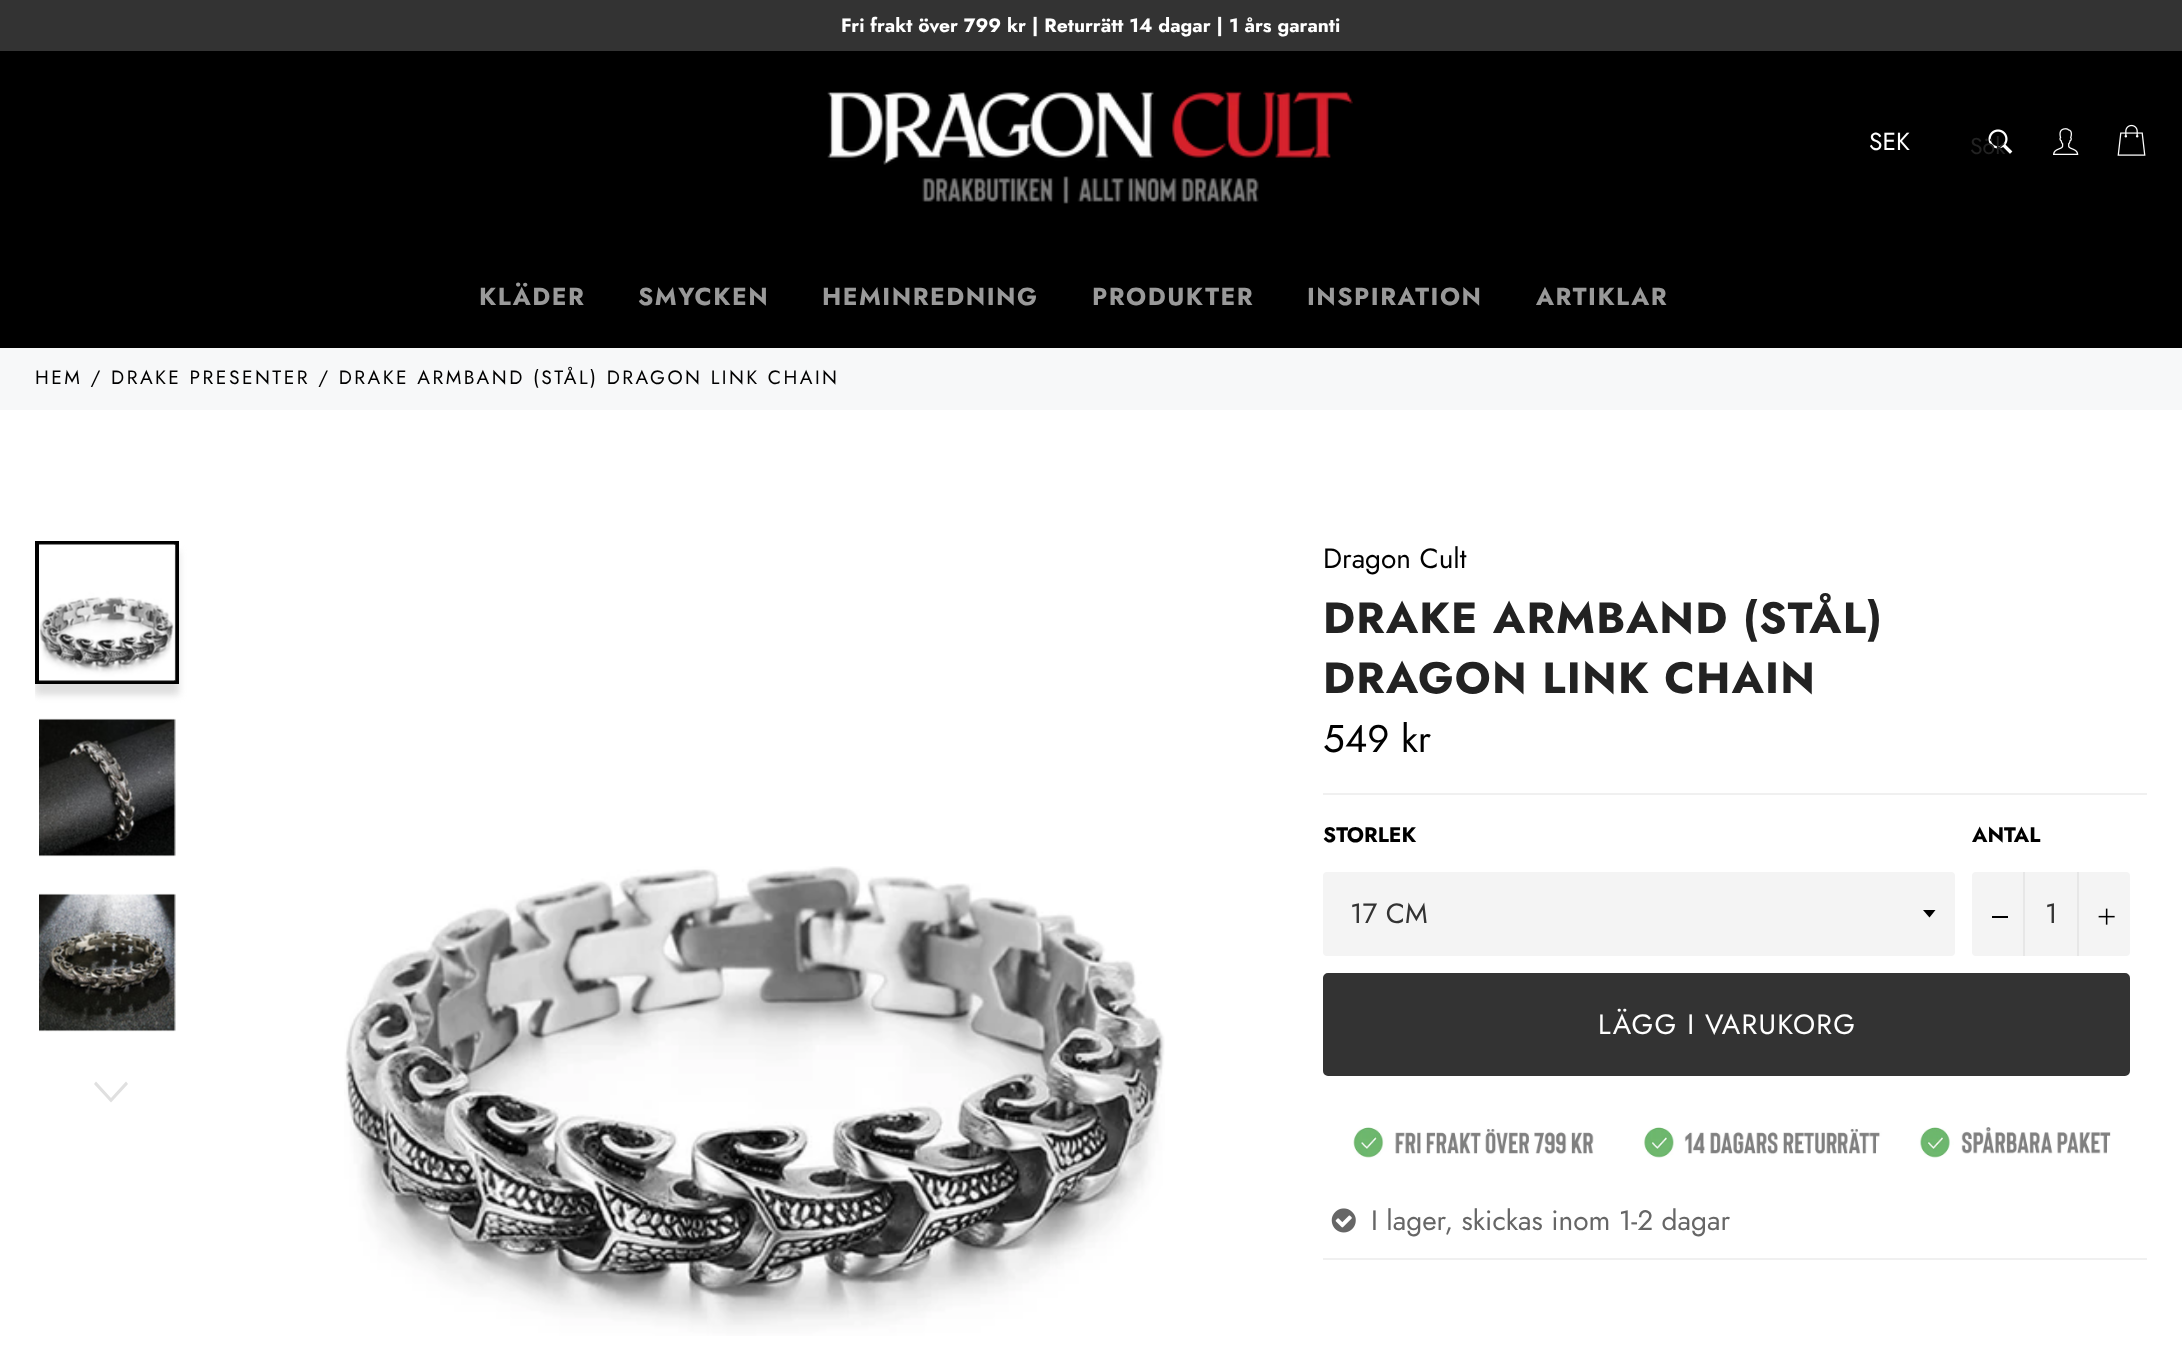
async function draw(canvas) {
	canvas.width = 2182;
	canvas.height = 1359;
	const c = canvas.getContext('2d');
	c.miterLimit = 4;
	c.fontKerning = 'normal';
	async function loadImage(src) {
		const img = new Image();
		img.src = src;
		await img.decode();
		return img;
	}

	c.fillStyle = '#fff';
	c.fillRect(0, 0, 2182, 1359);
	c.fillStyle = '#333';
	c.fillRect(0, 0, 2182, 51);
	c.font = 'bold 19.25px Jost';
	c.fillStyle = '#fff';
	c.fillText('Fri frakt över 799 kr | Returrätt 14 dagar | 1 års garanti', 841, 32);
	c.fillStyle = '#000';
	c.fillRect(0, 51, 2182, 297);
	c.drawImage(await loadImage('img1.png'), 827, 91, 526, 113);
	c.font = '24.5px Jost';
	c.fillStyle = '#fff';
	c.fillText('SEK', 1869, 150);
	c.drawImage(await loadImage('img2.png'), 1988, 129, 25, 25);
	c.font = '23px Jost';
	c.fillStyle = '#222';
	c.fillText('Sök', 1970, 154);
	c.drawImage(await loadImage('img3.png'), 2053, 128, 26, 27);
	c.drawImage(await loadImage('img4.png'), 2117, 124, 29, 32);
	c.letterSpacing = '1.5px';
	c.font = 'bold 24.5px Jost';
	c.fillStyle = '#999';
	for (const [text, x, y] of [
		['KLÄDER', 479, 305],
		['SMYCKEN', 638, 305],
		['HEMINREDNING', 822, 305],
		['PRODUKTER', 1092, 305],
		['INSPIRATION', 1307, 305],
		['ARTIKLAR', 1536, 305],
	]) {
		c.fillText(text, x, y);
	}
	c.fillStyle = '#f7f8f9';
	c.fillRect(0, 348, 2182, 62);
	c.letterSpacing = '2.45px';
	c.font = '19.25px Jost';
	c.fillStyle = '#000';
	c.fillText('HEM / DRAKE PRESENTER / DRAKE ARMBAND (STÅL) DRAGON LINK CHAIN', 35, 384);
	c.save();
	c.beginPath();
	c.rect(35, 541, 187, 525);
	c.clip();
	c.fillStyle = '#c7c7c799';
	c.filter = 'blur(3.5px)';
	c.beginPath();
	c.rect(35, 551, 144, 144);
	c.fill();
	c.filter = 'none';
	c.restore();
	c.strokeStyle = '#000';
	c.lineWidth = 4;
	c.strokeRect(37, 543, 140, 139);
	c.drawImage(await loadImage('img5.png'), 39, 543, 137, 139);
	c.drawImage(await loadImage('img6.png'), 39, 718, 137, 139);
	c.drawImage(await loadImage('img7.png'), 39, 893, 137, 139);
	c.fillStyle = '#e0e0e0';
	c.beginPath();
	c.moveTo(126, 1081.5);
	c.lineTo(128, 1084);
	c.lineTo(111, 1102.5);
	c.lineTo(94, 1084);
	c.lineTo(96, 1081.5);
	c.lineTo(111, 1098);
	c.closePath();
	c.fill();
	c.drawImage(await loadImage('img8.png'), 344, 866, 821, 470);
	c.letterSpacing = '0px';
	c.font = '28px Jost';
	c.fillStyle = '#000';
	c.fillText('Dragon Cult', 1323, 568);
	c.letterSpacing = '1.25px';
	c.font = 'bold 43.75px Jost';
	c.fillStyle = '#222';
	c.fillText('DRAKE ARMBAND (STÅL)', 1323, 633);
	c.fillText('DRAGON LINK CHAIN', 1323, 693);
	c.letterSpacing = '0px';
	c.font = '38.5px Jost';
	c.fillStyle = '#000';
	c.fillText('549 kr', 1323, 752);
	c.fillStyle = '#f0f0f0';
	c.fillRect(1323, 793, 824, 2);
	c.font = 'bold 21px Jost';
	c.fillStyle = '#000';
	c.fillText('STORLEK', 1323, 842);
	c.fillStyle = '#f4f4f4';
	c.beginPath();
	c.roundRect(1323, 872, 632, 84, 4);
	c.fill();
	c.fillStyle = '#000';
	c.beginPath();
	c.moveTo(1923, 910);
	c.lineTo(1929.5, 917.5);
	c.lineTo(1935.5, 910);
	c.closePath();
	c.fill();
	c.font = '28px Jost';
	c.fillStyle = '#333';
	c.fillText('17 CM', 1350, 923);
	c.font = 'bold 21px Jost';
	c.fillStyle = '#000';
	c.fillText('ANTAL', 1972, 842);
	c.fillStyle = '#f4f4f4';
	c.beginPath();
	c.roundRect(1972, 872, 158, 84, 4);
	c.fill();
	c.fillStyle = '#e7e7e7';
	c.fillRect(2023, 872, 2, 84);
	c.fillStyle = '#000';
	c.fillRect(1992, 916, 16, 2);
	c.font = '28px Jost';
	c.fillStyle = '#333';
	c.fillText('1', 2045, 923);
	c.fillStyle = '#e7e7e7';
	c.fillRect(2077, 872, 2, 84);
	c.drawImage(await loadImage('img9.png'), 2098, 908, 17, 17);
	c.fillStyle = '#333';
	c.beginPath();
	c.roundRect(1324, 974, 805, 101, 4);
	c.fill();
	c.strokeStyle = '#333';
	c.lineWidth = 2;
	c.stroke();
	c.letterSpacing = '1.25px';
	c.fillStyle = '#fff';
	c.fillText('LÄGG I VARUKORG', 1598, 1034);
	c.drawImage(await loadImage('img10.png'), 1353, 1127, 758, 31);
	c.drawImage(await loadImage('img11.png'), 1331, 1208, 25, 25);
	c.letterSpacing = '0px';
	c.fillStyle = '#666';
	c.fillText('I lager, skickas inom 1-2 dagar', 1371, 1230);
	c.fillStyle = '#f0f0f0';
	c.fillRect(1323, 1258, 824, 2);
}

draw(document.querySelector('canvas'));
